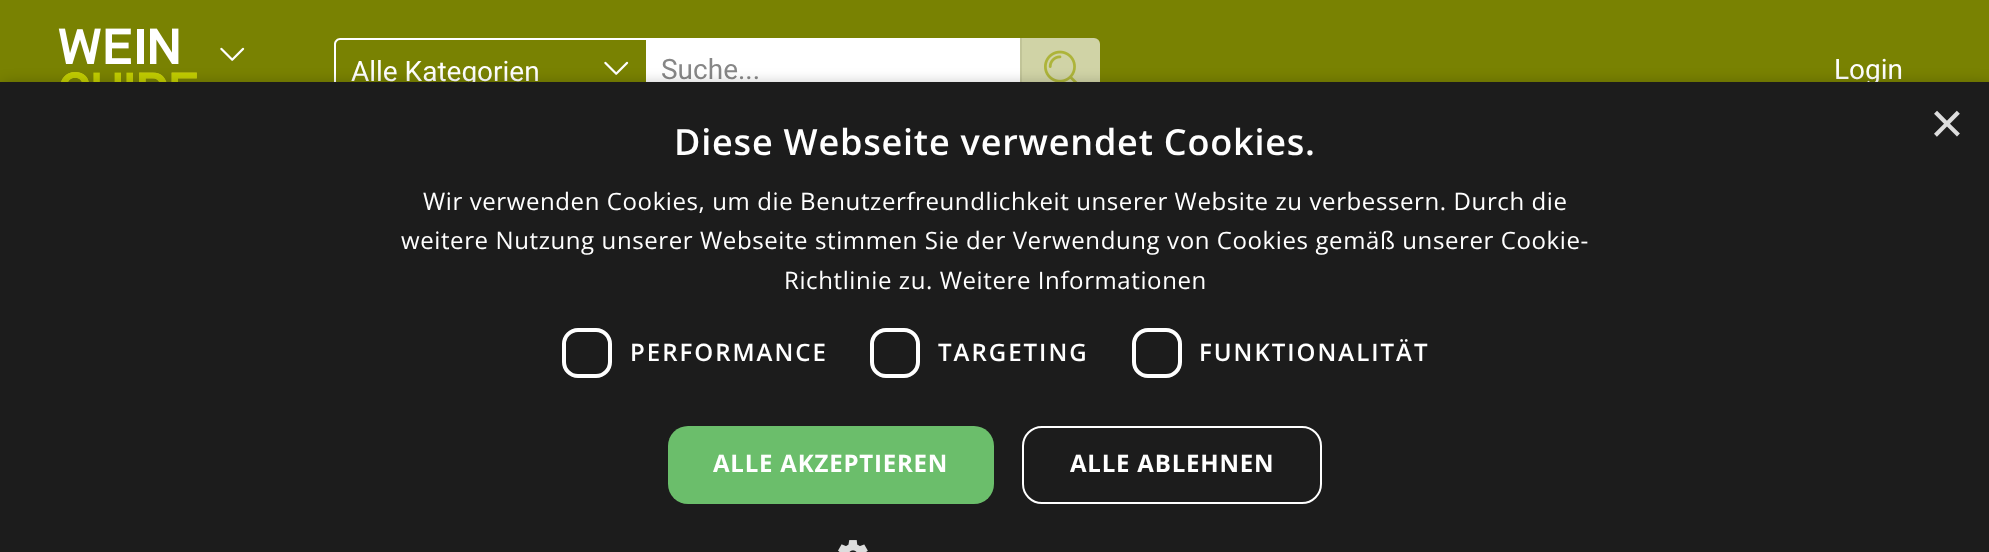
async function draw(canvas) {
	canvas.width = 1989;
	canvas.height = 552;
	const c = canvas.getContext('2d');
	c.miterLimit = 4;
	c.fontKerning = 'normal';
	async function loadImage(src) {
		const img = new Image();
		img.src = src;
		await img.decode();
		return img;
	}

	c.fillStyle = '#798202';
	c.fillRect(0, 0, 1989, 552);
	c.drawImage(await loadImage('img1.png'), 58, 28, 139, 54);
	c.drawImage(await loadImage('img2.png'), 220, 47, 25, 14);
	c.fillStyle = '#fff';
	c.beginPath();
	c.moveTo(340, 38);
	c.lineTo(646, 38);
	c.lineTo(646, 102);
	c.lineTo(340, 102);
	c.bezierCurveTo(337, 102, 334, 99, 334, 96);
	c.lineTo(334, 44);
	c.bezierCurveTo(334, 41, 337, 38, 340, 38);
	c.closePath();
	c.moveTo(340, 40);
	c.lineTo(646, 40);
	c.lineTo(646, 100);
	c.lineTo(340, 100);
	c.bezierCurveTo(338, 100, 336, 98, 336, 96);
	c.lineTo(336, 44);
	c.bezierCurveTo(336, 42, 338, 40, 340, 40);
	c.closePath();
	c.fill('evenodd');
	c.font = '28px Roboto';
	c.fillText('Alle Kategorien', 351, 81);
	c.drawImage(await loadImage('img2.png'), 604, 61, 25, 14);
	c.fillRect(646, 38, 374, 44);
	c.fillStyle = '#878787';
	c.fillText('Suche...', 661, 79);
	c.fillStyle = '#d0d3a6';
	c.beginPath();
	c.roundRect(1020, 38, 80, 64, [0, 6, 6, 0]);
	c.fill();
	c.fillStyle = '#c1c498';
	c.fillRect(1020, 38, 2, 44);
	c.drawImage(await loadImage('img3.png'), 1044, 50, 34, 32);
	c.fillStyle = '#fff';
	c.fillText('Login', 1834, 79);
	c.fillStyle = '#00000059';
	c.filter = 'blur(8px)';
	c.beginPath();
	c.rect(2, 86, 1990, 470);
	c.fill();
	c.filter = 'none';
	c.fillStyle = '#1c1c1c';
	c.fillRect(0, 82, 1989, 470);
	c.font = '58px Liberation Sans';
	c.fillStyle = '#ddd';
	c.fillText('×', 1930, 143);
	c.letterSpacing = '0.8px';
	c.font = '600 36px Open Sans';
	c.fillStyle = '#fff';
	c.fillText('Diese Webseite verwendet Cookies.', 674, 155);
	c.letterSpacing = '0.6px';
	c.font = '24px Open Sans';
	for (const [text, x, y] of [
		['Wir verwenden Cookies, um die Benutzerfreundlichkeit unserer Website zu verbessern. Durch die', 423, 210],
		['weitere Nutzung unserer Webseite stimmen Sie der Verwendung von Cookies gemäß unserer Cookie-', 401, 249],
		['Richtlinie zu. Weitere Informationen', 784, 289],
	]) {
		c.fillText(text, x, y);
	}
	c.beginPath();
	c.roundRect(564, 330, 46, 46, 14);
	c.strokeStyle = '#fff';
	c.lineWidth = 4;
	c.stroke();
	c.letterSpacing = '2px';
	c.font = '600 24px Open Sans';
	c.fillText('PERFORMANCE', 630, 361);
	c.beginPath();
	c.roundRect(872, 330, 46, 46, 14);
	c.stroke();
	c.fillText('TARGETING', 938, 361);
	c.beginPath();
	c.roundRect(1134, 330, 46, 46, 14);
	c.stroke();
	c.fillText('FUNKTIONALITÄT', 1199, 361);
	c.fillStyle = '#6bbe6b';
	c.beginPath();
	c.roundRect(668, 426, 326, 78, 20);
	c.fill();
	c.letterSpacing = '0.8px';
	c.font = 'bold 24px Open Sans';
	c.fillStyle = '#fff';
	c.fillText('ALLE AKZEPTIEREN', 713, 472);
	c.beginPath();
	c.roundRect(1023, 427, 298, 76, 19);
	c.lineWidth = 2;
	c.stroke();
	c.fillText('ALLE ABLEHNEN', 1070, 472);
	c.drawImage(await loadImage('img4.png'), 838, 540, 30, 12);
}

draw(document.querySelector('canvas'));
